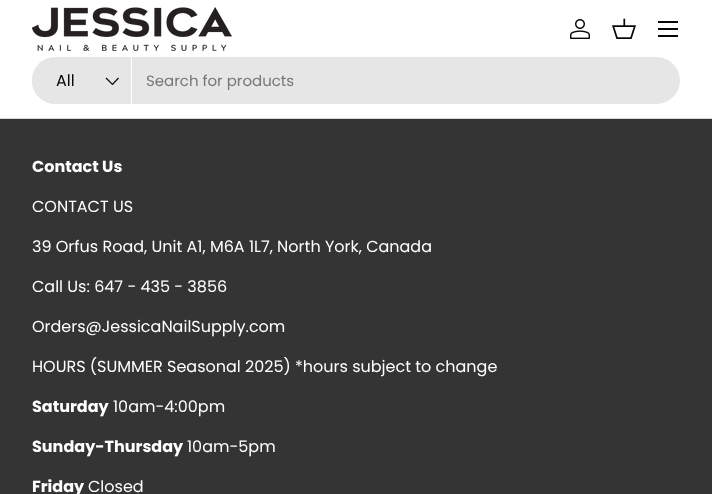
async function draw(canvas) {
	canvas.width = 712;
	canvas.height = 494;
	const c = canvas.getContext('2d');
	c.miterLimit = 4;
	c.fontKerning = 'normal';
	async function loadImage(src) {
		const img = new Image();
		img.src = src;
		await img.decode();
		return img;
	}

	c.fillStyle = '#353434';
	c.fillRect(0, 0, 712, 494);
	c.fillStyle = '#fff';
	c.fillRect(0, 0, 712, 118);
	c.fillStyle = '#dadada';
	c.fillRect(0, 118, 712, 1);
	c.drawImage(await loadImage('img1.png'), 32, 7, 200, 44);
	c.drawImage(await loadImage('img2.png'), 570, 19, 20, 20);
	c.drawImage(await loadImage('img3.png'), 612, 18, 24, 21);
	for (const [x, y, w, h, color] of [
		[658, 21, 20, 2, '#070707'],
		[658, 35, 20, 2, '#070707'],
		[658, 28, 20, 2, '#070707'],
	]) {
		c.fillStyle = color;
		c.fillRect(x, y, w, h);
	}
	c.fillStyle = '#e6e6e6';
	c.beginPath();
	c.roundRect(32, 57, 648, 47, 23.5);
	c.fill();
	c.beginPath();
	c.roundRect(32, 57, 100, 47, [23.5, 0, 0, 23.5]);
	c.fill();
	c.fillStyle = '#fff';
	c.fillRect(131, 57, 1, 47);
	c.font = '16px Poppins';
	c.fillStyle = '#070707';
	c.fillText('All', 56, 86);
	c.beginPath();
	c.moveTo(118.5, 78);
	c.lineTo(112.5, 84.5);
	c.lineTo(106, 78);
	c.strokeStyle = '#070707';
	c.lineWidth = 1.2;
	c.stroke();
	c.font = '15px Poppins';
	c.fillStyle = '#777';
	c.fillText('Search for products', 146, 86);
	c.font = 'bold 16px Poppins';
	c.fillStyle = '#fff';
	c.fillText('Contact Us', 32, 172);
	c.font = '16px Poppins';
	for (const [text, x, y] of [
		['CONTACT US', 32, 212],
		['39 Orfus Road, Unit A1, M6A 1L7, North York, Canada', 32, 252],
		['Call Us: 647 - 435 - 3856', 32, 292],
		['Orders@JessicaNailSupply.com', 32, 332],
		['HOURS (SUMMER Seasonal 2025) *hours subject to change', 32, 372],
	]) {
		c.fillText(text, x, y);
	}
	c.font = 'bold 16px Poppins';
	c.fillText('Saturday', 32, 412);
	c.font = '16px Poppins';
	c.fillText('10am-4:00pm', 113, 412);
	c.font = 'bold 16px Poppins';
	c.fillText('Sunday-Thursday', 32, 452);
	c.font = '16px Poppins';
	c.fillText('10am-5pm', 187, 452);
	c.font = 'bold 16px Poppins';
	c.fillText('Friday', 32, 492);
	c.font = '16px Poppins';
	c.fillText('Closed', 88, 492);
}

draw(document.querySelector('canvas'));
